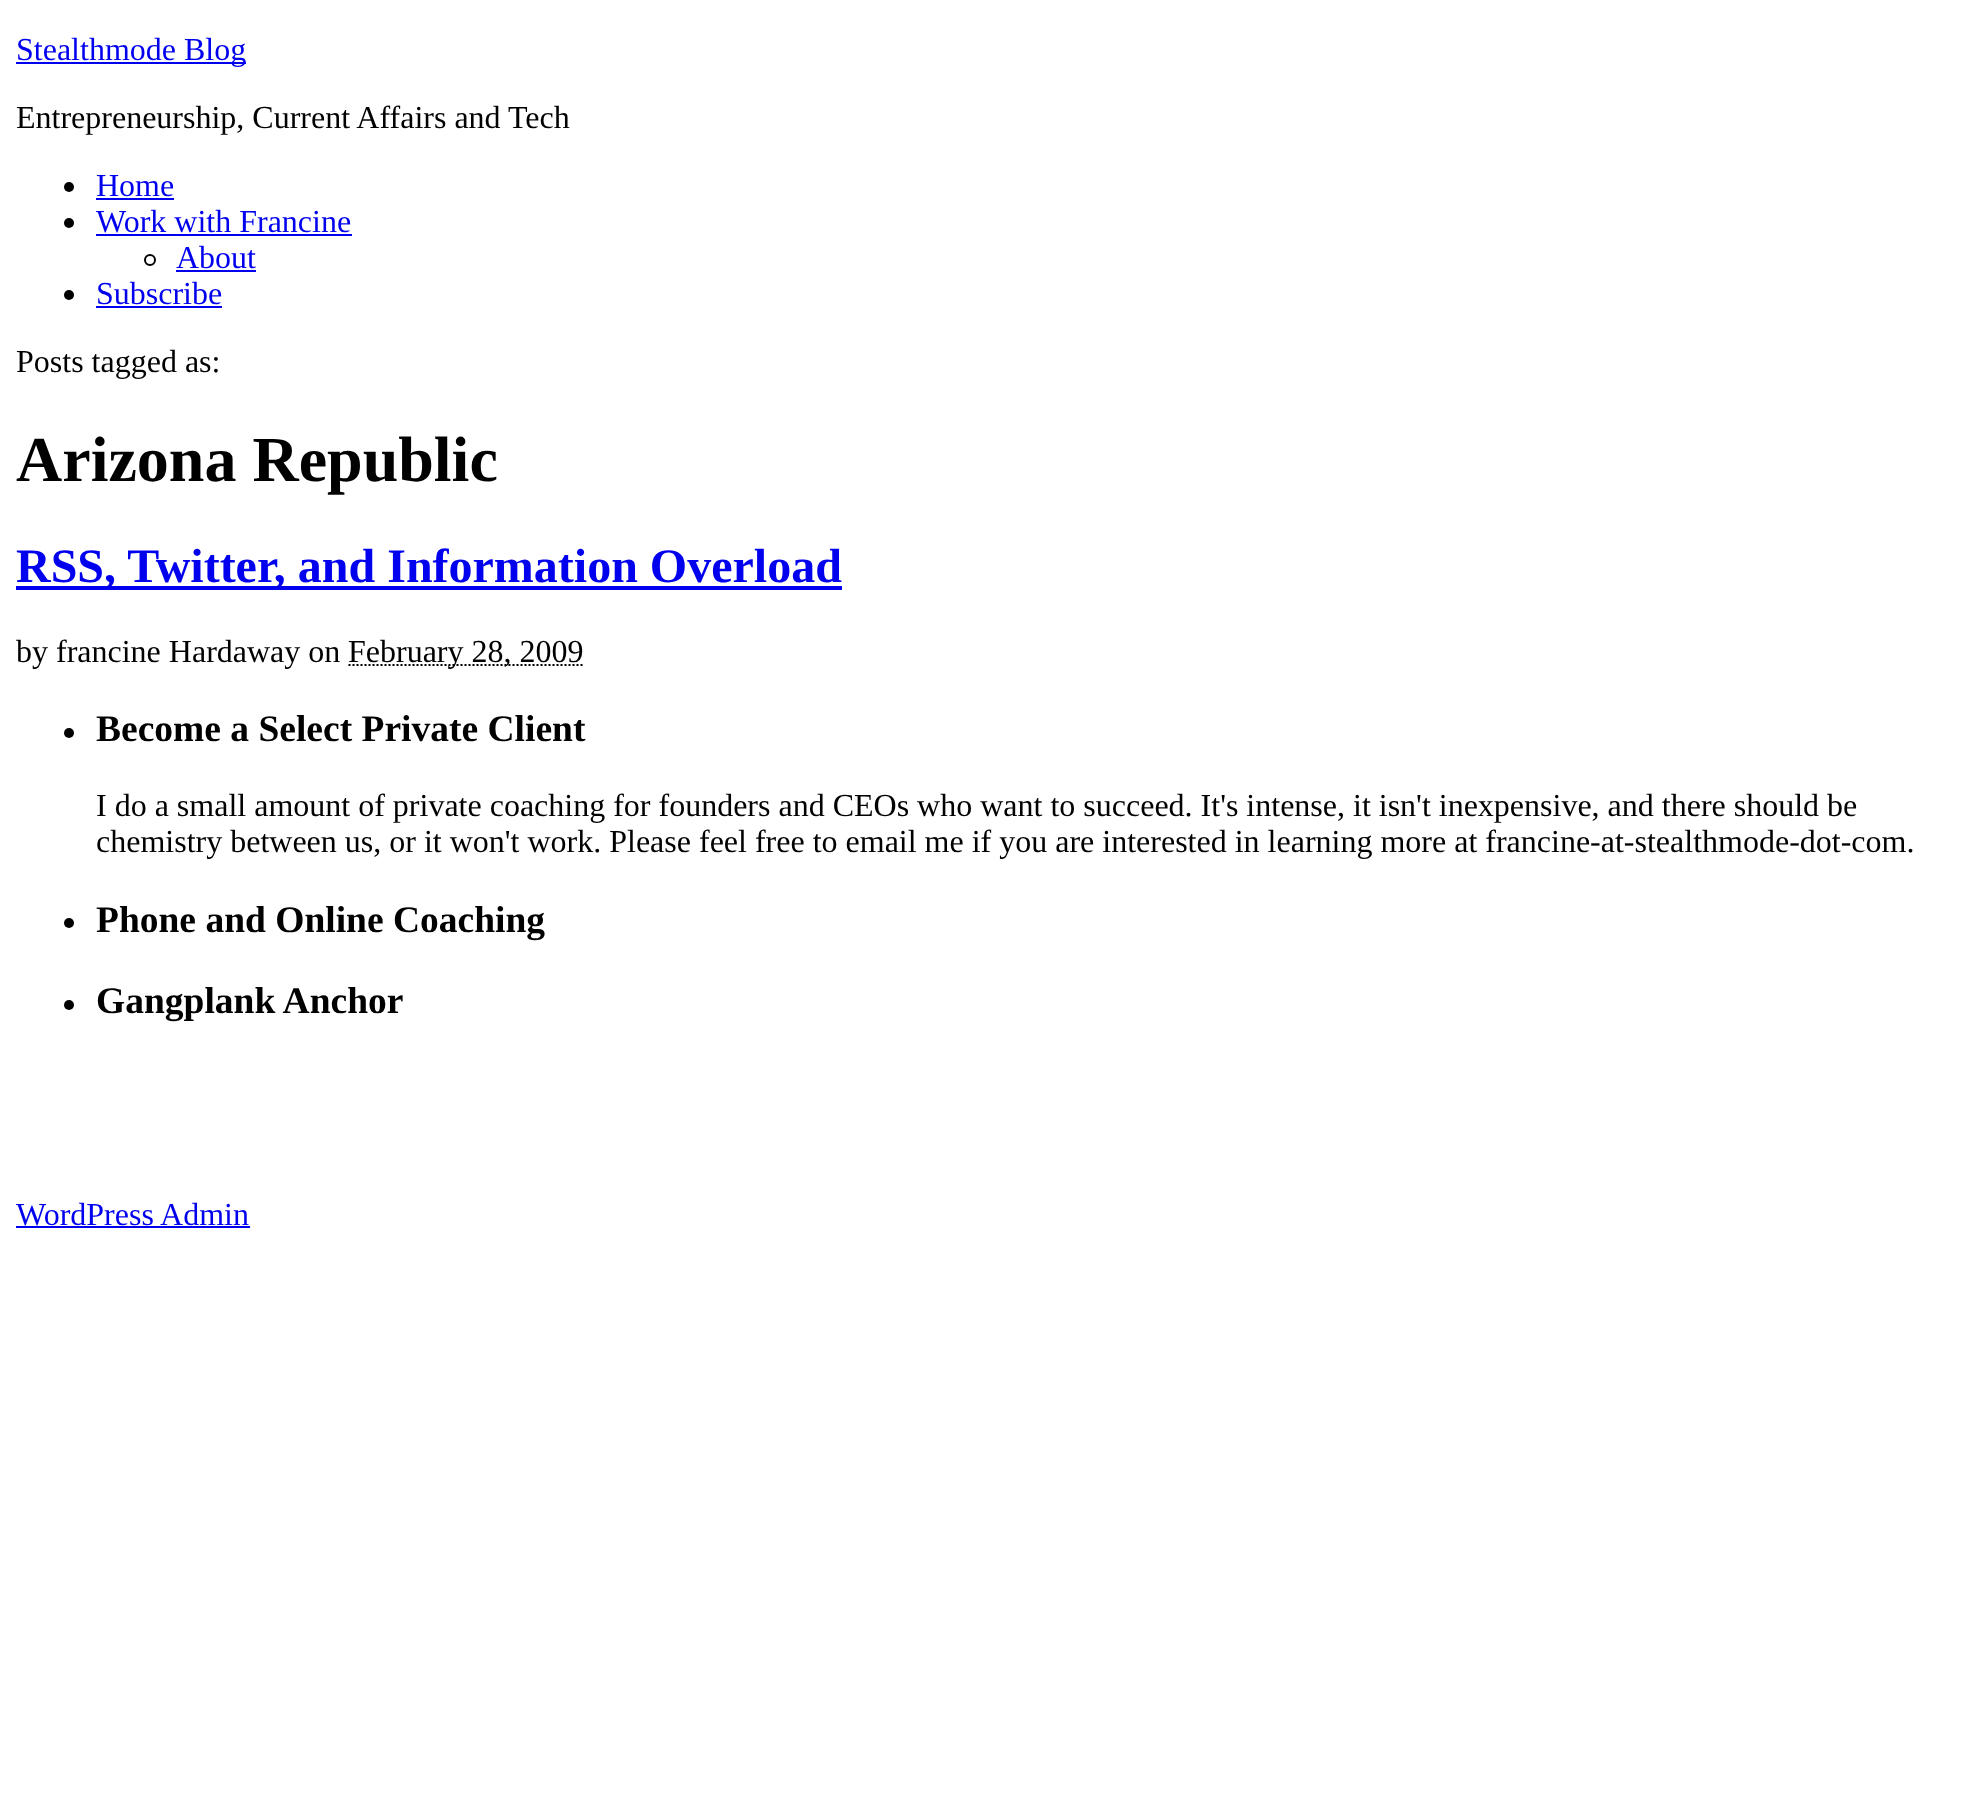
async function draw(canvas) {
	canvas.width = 1981;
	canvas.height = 1812;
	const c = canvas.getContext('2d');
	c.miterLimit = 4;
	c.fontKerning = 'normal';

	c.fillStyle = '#fff';
	c.fillRect(0, 0, 1981, 1812);
	c.fillStyle = '#00e';
	c.fillRect(16, 62, 230, 2);
	c.font = '32px Liberation Serif';
	c.fillText('Stealthmode Blog', 16, 60);
	c.fillStyle = '#000';
	c.fillText('Entrepreneurship, Current Affairs and Tech', 16, 128);
	c.beginPath();
	c.arc(69, 187, 5, 0, 2 * Math.PI);
	c.fill();
	c.fillStyle = '#00e';
	c.fillText('Home', 96, 196);
	c.fillRect(96, 198, 78, 2);
	c.fillStyle = '#000';
	c.beginPath();
	c.arc(69, 223, 5, 0, 2 * Math.PI);
	c.fill();
	c.fillStyle = '#00e';
	c.fillText('Work with Francine', 96, 232);
	c.fillRect(96, 234, 256, 2);
	c.beginPath();
	c.arc(150, 260, 5, 0, 2 * Math.PI);
	c.strokeStyle = '#000';
	c.lineWidth = 2;
	c.stroke();
	c.fillText('About', 176, 268);
	c.fillRect(176, 270, 80, 2);
	c.fillStyle = '#000';
	c.beginPath();
	c.arc(69, 295, 5, 0, 2 * Math.PI);
	c.fill();
	c.fillStyle = '#00e';
	c.fillText('Subscribe', 96, 304);
	c.fillRect(96, 306, 126, 2);
	c.fillStyle = '#000';
	c.fillText('Posts tagged as:', 16, 372);
	c.font = 'bold 64px Liberation Serif';
	c.fillText('Arizona Republic', 16, 481);
	c.fillStyle = '#00e';
	c.fillRect(16, 586, 826, 4);
	c.font = 'bold 48px Liberation Serif';
	c.fillText('RSS, Twitter, and Information Overload', 16, 582);
	c.font = '32px Liberation Serif';
	c.fillStyle = '#000';
	c.fillText('by francine Hardaway on', 16, 662);
	c.beginPath();
	c.moveTo(348.5, 665);
	c.lineTo(584, 665);
	c.setLineDash([2, 2]);
	c.stroke();
	c.fillText('February 28, 2009', 348, 662);
	c.beginPath();
	c.arc(69, 733, 5, 0, 2 * Math.PI);
	c.fill();
	c.font = 'bold 37.5px Liberation Serif';
	c.fillText('Become a Select Private Client', 96, 741);
	c.font = '32px Liberation Serif';
	c.fillText('I do a small amount of private coaching for founders and CEOs who want to succeed. It\'s intense, it isn\'t inexpensive, and there should be', 96, 816);
	c.fillText('chemistry between us, or it won\'t work. Please feel free to email me if you are interested in learning more at francine-at-stealthmode-dot-com.', 96, 852);
	c.beginPath();
	c.arc(69, 923, 5, 0, 2 * Math.PI);
	c.fill();
	c.font = 'bold 37.5px Liberation Serif';
	c.fillText('Phone and Online Coaching', 96, 932);
	c.beginPath();
	c.arc(69, 1005, 5, 0, 2 * Math.PI);
	c.fill();
	c.fillText('Gangplank Anchor', 96, 1013);
	c.font = '32px Liberation Serif';
	c.fillStyle = '#00e';
	c.fillText('WordPress Admin', 16, 1225);
	c.fillRect(16, 1226, 234, 2);
}

draw(document.querySelector('canvas'));
